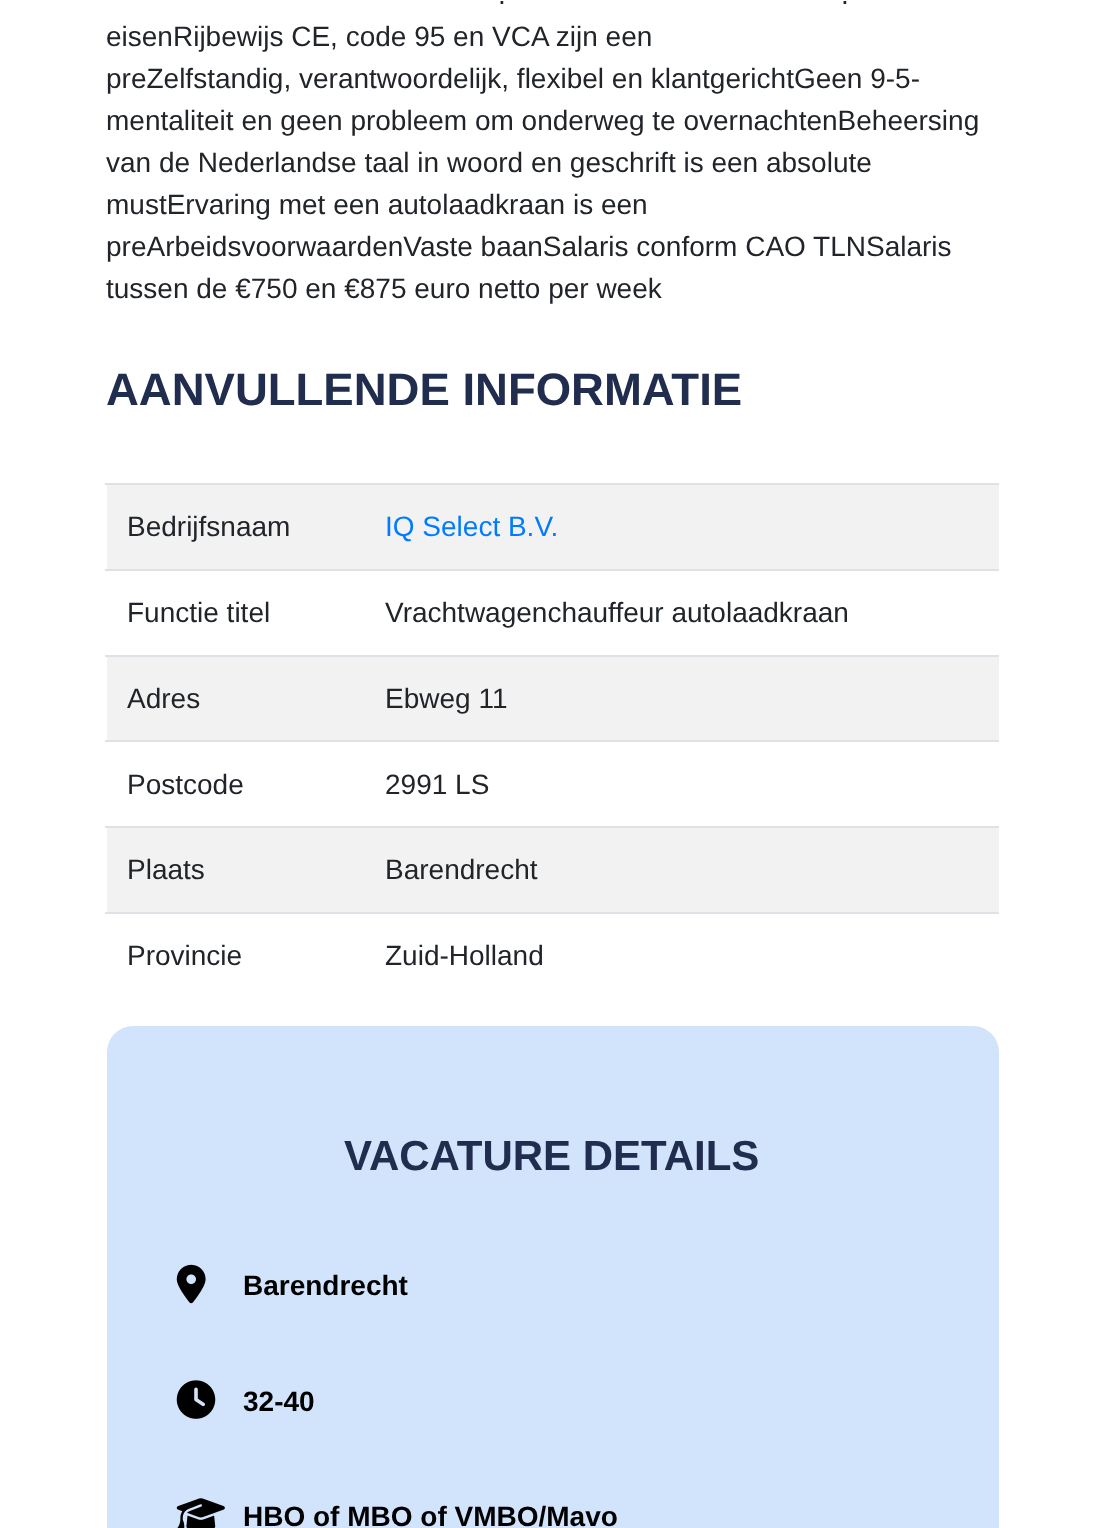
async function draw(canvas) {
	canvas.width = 1104;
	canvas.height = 1528;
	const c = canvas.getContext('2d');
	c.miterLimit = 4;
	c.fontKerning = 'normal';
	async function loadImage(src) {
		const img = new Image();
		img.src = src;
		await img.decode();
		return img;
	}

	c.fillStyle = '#fff';
	c.fillRect(0, 0, 1104, 1528);
	c.font = '28px Liberation Sans';
	c.fillStyle = '#212529';
	for (const [text, x, y] of [
		['.', 498, 4],
		['.', 841, 4],
		['eisenRijbewijs CE, code 95 en VCA zijn een', 106, 46],
		['preZelfstandig, verantwoordelijk, flexibel en klantgerichtGeen 9-5-', 106, 88],
		['mentaliteit en geen probleem om onderweg te overnachtenBeheersing', 106, 130],
		['van de Nederlandse taal in woord en geschrift is een absolute', 106, 172],
		['mustErvaring met een autolaadkraan is een', 106, 214],
		['preArbeidsvoorwaardenVaste baanSalaris conform CAO TLNSalaris', 106, 256],
		['tussen de €750 en €875 euro netto per week', 106, 298],
	]) {
		c.fillText(text, x, y);
	}
	c.font = 'bold 45.5px Liberation Sans';
	c.fillStyle = '#212d4f';
	c.fillText('AANVULLENDE INFORMATIE', 106, 405);
	c.fillStyle = '#f2f2f2';
	c.fillRect(107, 485, 892, 84);
	c.font = '28px Liberation Sans';
	c.fillStyle = '#212529';
	c.fillText('Bedrijfsnaam', 127, 536);
	c.fillStyle = '#dee2e6';
	c.fillRect(105, 483, 894, 2);
	c.fillStyle = '#007bff';
	c.fillText('IQ Select B.V.', 385, 536);
	c.fillStyle = '#212529';
	c.fillText('Functie titel', 127, 622);
	c.fillStyle = '#dee2e6';
	c.fillRect(105, 569, 894, 2);
	c.fillStyle = '#212529';
	c.fillText('Vrachtwagenchauffeur autolaadkraan', 385, 622);
	c.fillStyle = '#f2f2f2';
	c.fillRect(107, 657, 892, 83);
	c.fillStyle = '#212529';
	c.fillText('Adres', 127, 708);
	c.fillStyle = '#dee2e6';
	c.fillRect(105, 655, 894, 2);
	c.fillStyle = '#212529';
	c.fillText('Ebweg 11', 385, 708);
	c.fillText('Postcode', 127, 794);
	c.fillStyle = '#dee2e6';
	c.fillRect(105, 740, 894, 2);
	c.fillStyle = '#212529';
	c.fillText('2991 LS', 385, 794);
	c.fillStyle = '#f2f2f2';
	c.fillRect(107, 828, 892, 84);
	c.fillStyle = '#212529';
	c.fillText('Plaats', 127, 879);
	c.fillStyle = '#dee2e6';
	c.fillRect(105, 826, 894, 2);
	c.fillStyle = '#212529';
	c.fillText('Barendrecht', 385, 879);
	c.fillText('Provincie', 127, 965);
	c.fillStyle = '#dee2e6';
	c.fillRect(105, 912, 894, 2);
	c.fillStyle = '#212529';
	c.fillText('Zuid-Holland', 385, 965);
	c.fillStyle = '#d2e3fc';
	c.beginPath();
	c.roundRect(107, 1026, 892, 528, 26);
	c.fill();
	c.font = 'bold 42px Liberation Sans';
	c.fillStyle = '#212d4f';
	c.fillText('VACATURE DETAILS', 344, 1170);
	c.drawImage(await loadImage('img1.png'), 176, 1264, 30, 40);
	c.font = 'bold 28px Liberation Sans';
	c.fillStyle = '#000';
	c.fillText('Barendrecht', 243, 1295);
	c.drawImage(await loadImage('img2.png'), 176, 1380, 40, 39);
	c.fillText('32-40', 243, 1411);
	c.drawImage(await loadImage('img3.png'), 176, 1498, 49, 30);
	c.fillText('HBO of MBO of VMBO/Mavo', 243, 1526);
}

draw(document.querySelector('canvas'));
